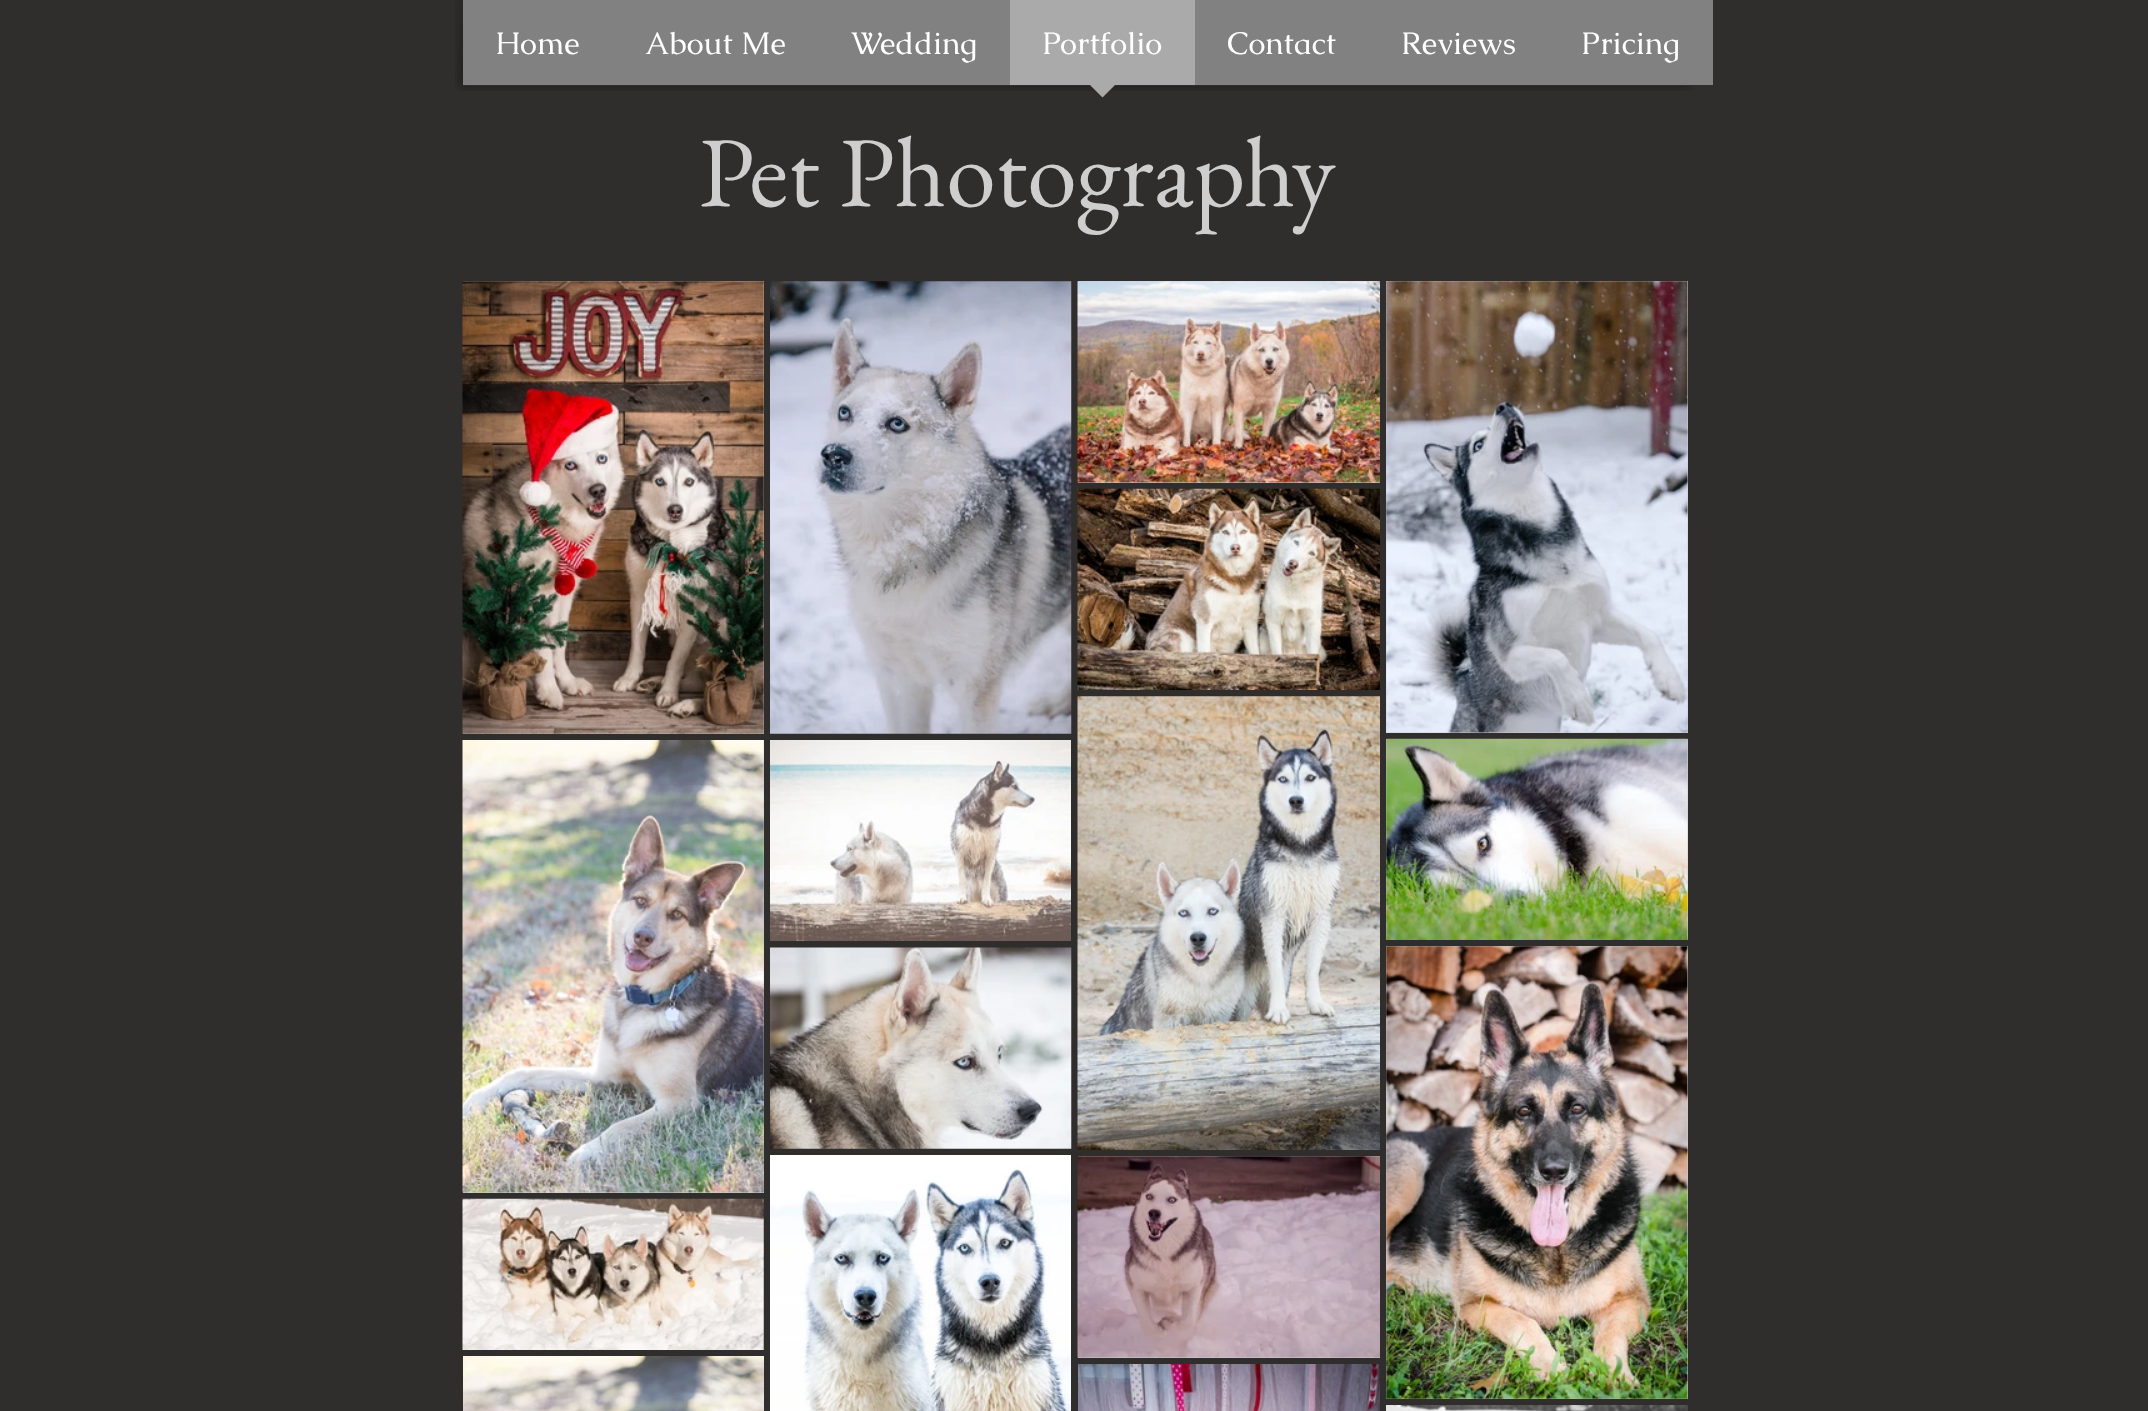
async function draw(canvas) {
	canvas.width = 2148;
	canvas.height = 1411;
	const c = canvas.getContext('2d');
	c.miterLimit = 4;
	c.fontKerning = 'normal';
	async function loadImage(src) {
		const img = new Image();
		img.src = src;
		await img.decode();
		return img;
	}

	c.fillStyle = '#302d2d';
	c.fillRect(0, 0, 2148, 1411);
	c.drawImage(await loadImage('img1.png'), 455, 0, 52, 91);
	c.drawImage(await loadImage('img2.png'), 506, 86, 1138, 5);
	c.drawImage(await loadImage('img3.png'), 1644, 86, 51, 5);
	c.fillStyle = '#818181';
	c.fillRect(463, 0, 1250, 85);
	c.fillStyle = '#302d2d';
	c.fillRect(463, 85, 44, 1);
	c.font = '31.25px Caudex';
	c.fillStyle = '#fff';
	for (const [text, x, y] of [
		['Home', 495, 54],
		['About Me', 645, 54],
		['Wedding', 851, 54],
	]) {
		c.fillText(text, x, y);
	}
	c.fillStyle = '#aaa';
	c.fillRect(1010, 0, 185, 85);
	c.fillStyle = '#fff';
	c.fillText('Portfolio', 1042, 54);
	c.fillStyle = '#302d2d';
	c.beginPath();
	c.moveTo(1089, 85);
	c.lineTo(1116, 85);
	c.lineTo(1102.5, 99);
	c.closePath();
	c.fill();
	c.fillStyle = '#aaa';
	c.beginPath();
	c.moveTo(1090, 85);
	c.lineTo(1115, 85);
	c.lineTo(1102.5, 97.5);
	c.closePath();
	c.fill();
	c.fillStyle = '#fff';
	for (const [text, x, y] of [
		['Contact', 1227, 54],
		['Reviews', 1401, 54],
		['Pricing', 1581, 54],
	]) {
		c.fillText(text, x, y);
	}
	c.font = '100px EB Garamond';
	c.fillStyle = '#cecece';
	c.fillText('Pet Photography', 699, 206);
	c.fillRect(463, 281, 301, 453);
	c.drawImage(await loadImage('img4.png'), 462, 281, 302, 453);
	c.drawImage(await loadImage('img5.png'), 770, 281, 302, 453);
	c.fillRect(1078, 281, 302, 202);
	c.drawImage(await loadImage('img6.png'), 1077, 281, 303, 202);
	c.fillRect(1386, 281, 302, 452);
	c.drawImage(await loadImage('img7.png'), 1386, 281, 302, 452);
	c.drawImage(await loadImage('img8.png'), 1077, 488, 303, 202);
	c.fillRect(463, 740, 301, 453);
	c.drawImage(await loadImage('img9.png'), 462, 740, 302, 453);
	c.drawImage(await loadImage('img10.png'), 770, 740, 301, 201);
	c.drawImage(await loadImage('img11.png'), 1077, 696, 303, 454);
	c.fillRect(1386, 739, 302, 201);
	c.drawImage(await loadImage('img12.png'), 1386, 738, 302, 202);
	c.drawImage(await loadImage('img13.png'), 770, 947, 302, 202);
	c.fillRect(1386, 946, 302, 453);
	c.drawImage(await loadImage('img14.png'), 1386, 946, 302, 453);
	c.drawImage(await loadImage('img15.png'), 462, 1198, 302, 152);
	c.drawImage(await loadImage('img16.png'), 770, 1155, 301, 256);
	c.fillRect(1078, 1156, 302, 202);
	c.drawImage(await loadImage('img17.png'), 1077, 1156, 303, 202);
	c.drawImage(await loadImage('img18.png'), 463, 1356, 301, 55);
	c.drawImage(await loadImage('img19.png'), 1078, 1364, 302, 47);
	c.drawImage(await loadImage('img20.png'), 1386, 1405, 302, 6);
}

draw(document.querySelector('canvas'));
